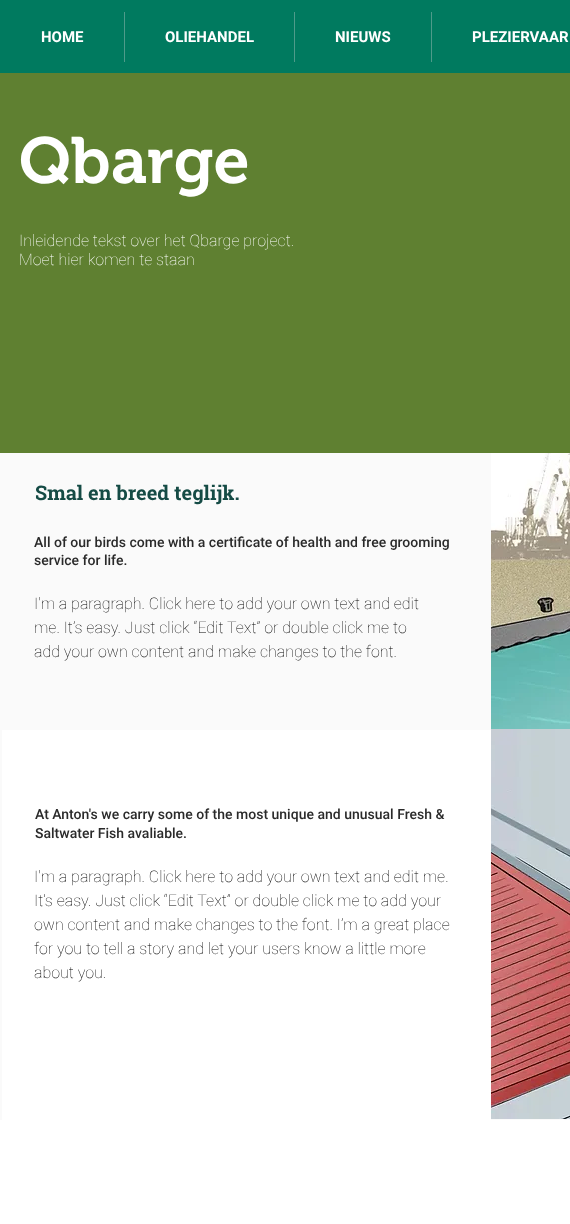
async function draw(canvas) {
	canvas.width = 570;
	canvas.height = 1224;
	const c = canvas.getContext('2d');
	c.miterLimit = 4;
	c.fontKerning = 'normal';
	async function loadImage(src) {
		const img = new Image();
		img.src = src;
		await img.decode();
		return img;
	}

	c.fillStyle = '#fff';
	c.fillRect(0, 0, 570, 1224);
	c.fillStyle = '#007a5f';
	c.fillRect(0, 0, 570, 73);
	c.font = 'bold 15px Roboto';
	c.fillStyle = '#fff';
	c.fillText('HOME', 41, 42);
	c.fillStyle = '#4e9b8a';
	c.fillRect(124, 12, 1, 50);
	c.fillStyle = '#fff';
	c.fillText('OLIEHANDEL', 165, 42);
	c.fillStyle = '#4e9b8a';
	c.fillRect(294, 12, 1, 50);
	c.fillStyle = '#fff';
	c.fillText('NIEUWS', 335, 42);
	c.fillStyle = '#4e9b8a';
	c.fillRect(431, 12, 1, 50);
	c.fillStyle = '#fff';
	c.fillText('PLEZIERVAAR', 472, 42);
	c.fillStyle = '#5f8031';
	c.fillRect(0, 73, 570, 380);
	c.font = '600 65px "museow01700"';
	c.fillStyle = '#fff';
	c.fillText('Qbarge', 19, 183);
	c.font = '100 16px Roboto';
	c.fillText('Inleidende tekst over het Qbarge project.', 19, 246);
	c.fillText('Moet hier komen te staan', 19, 265);
	c.fillStyle = '#fafafa';
	c.fillRect(0, 453, 570, 667);
	c.font = 'bold 20px Roboto Slab';
	c.fillStyle = '#154b45';
	c.fillText('Smal en breed teglijk.', 35, 500);
	c.drawImage(await loadImage('img1.png'), 491, 453, 79, 276);
	c.font = '500 14px Roboto';
	c.fillStyle = '#2a2a2a';
	c.fillText('All of our birds come with a certificate of health and free grooming', 34, 547);
	c.fillText('service for life.', 34, 565);
	c.font = '100 16px Roboto';
	c.fillStyle = '#000';
	for (const [text, x, y] of [
		['I\'m a paragraph. Click here to add your own text and edit', 34, 609],
		['me. It’s easy. Just click “Edit Text” or double click me to', 34, 633],
		['add your own content and make changes to the font.', 34, 657],
	]) {
		c.fillText(text, x, y);
	}
	c.fillStyle = '#fff';
	c.fillRect(2, 730, 489, 390);
	c.font = '500 14px Roboto';
	c.fillStyle = '#2a2a2a';
	c.fillText('At Anton\'s we carry some of the most unique and unusual Fresh &', 35, 819);
	c.fillText('Saltwater Fish avaliable.', 35, 838);
	c.font = '100 16px Roboto';
	c.fillStyle = '#000';
	for (const [text, x, y] of [
		['I\'m a paragraph. Click here to add your own text and edit me.', 34, 882],
		['It’s easy. Just click “Edit Text” or double click me to add your', 34, 906],
		['own content and make changes to the font. I’m a great place', 34, 930],
		['for you to tell a story and let your users know a little more', 34, 954],
		['about you.', 34, 978],
	]) {
		c.fillText(text, x, y);
	}
	c.drawImage(await loadImage('img2.png'), 491, 729, 79, 390);
}

draw(document.querySelector('canvas'));
